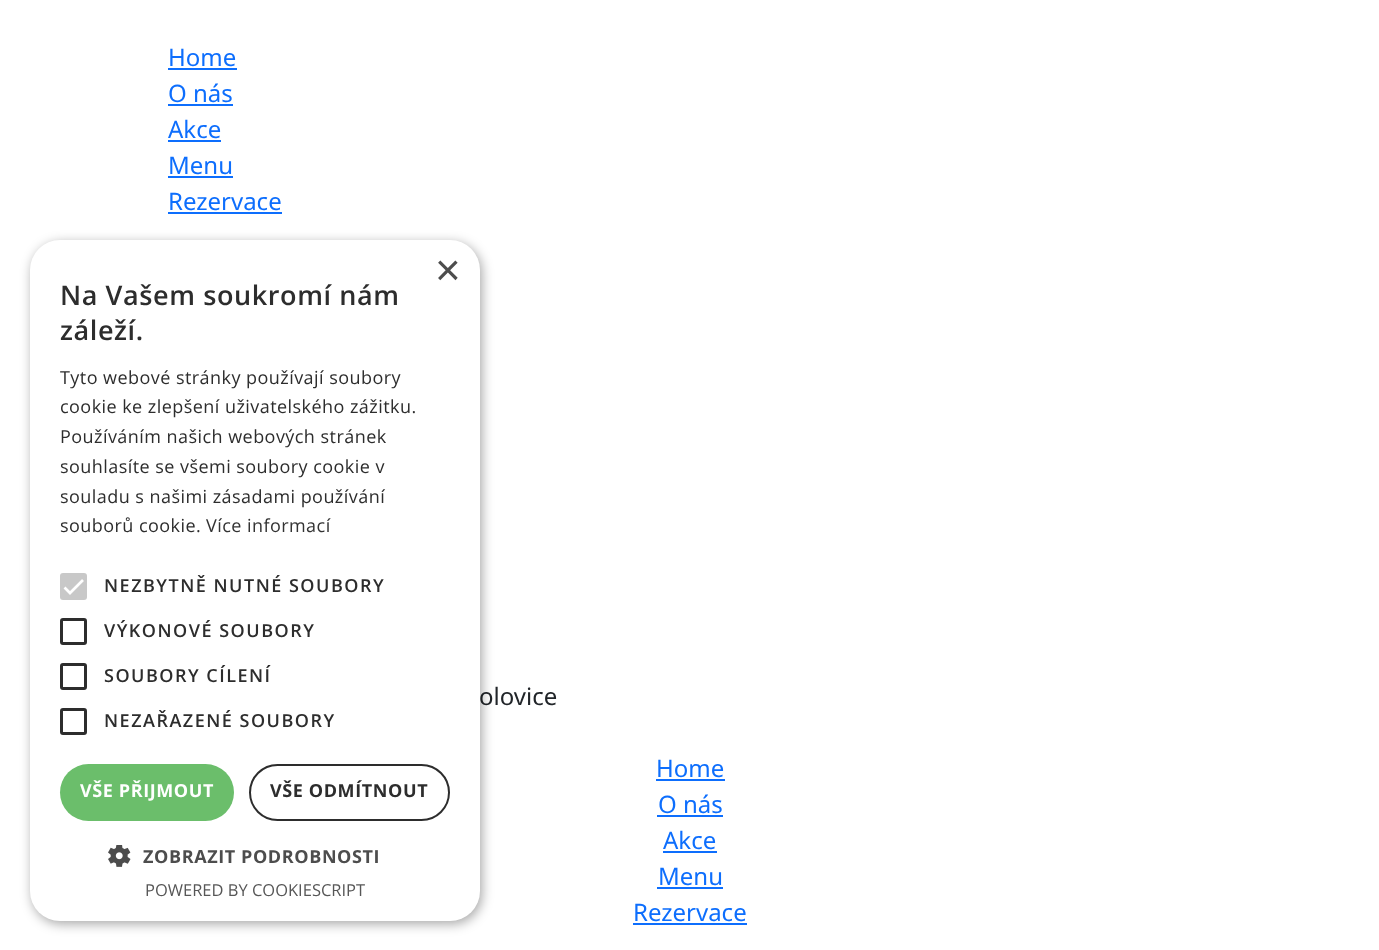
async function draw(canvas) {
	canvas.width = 1379;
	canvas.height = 950;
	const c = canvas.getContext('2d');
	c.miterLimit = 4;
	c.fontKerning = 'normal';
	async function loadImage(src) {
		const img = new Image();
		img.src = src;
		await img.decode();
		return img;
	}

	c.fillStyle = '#fff';
	c.fillRect(0, 0, 1379, 950);
	c.font = '24px Noto Sans';
	c.fillStyle = '#0d6efd';
	c.fillText('Home', 168, 66);
	c.fillRect(168, 68, 69, 2);
	c.fillText('O nás', 168, 102);
	c.fillRect(168, 104, 65, 2);
	c.fillText('Akce', 168, 138);
	c.fillRect(168, 140, 53, 2);
	c.fillText('Menu', 168, 174);
	c.fillRect(168, 176, 65, 2);
	c.fillText('Rezervace', 168, 210);
	c.fillRect(168, 212, 114, 2);
	c.fillStyle = '#212529';
	c.fillText('olovice', 479, 705);
	c.fillStyle = '#0d6efd';
	c.fillText('Home', 656, 777);
	c.fillRect(656, 779, 69, 2);
	c.fillText('O nás', 658, 813);
	c.fillRect(657, 815, 66, 2);
	c.fillText('Akce', 663, 849);
	c.fillRect(663, 851, 54, 2);
	c.fillText('Menu', 658, 885);
	c.fillRect(657, 887, 66, 2);
	c.fillText('Rezervace', 633, 921);
	c.fillRect(633, 923, 114, 2);
	c.fillStyle = '#00000059';
	c.filter = 'blur(6px)';
	c.beginPath();
	c.roundRect(32, 243, 450, 681, 30);
	c.fill();
	c.filter = 'none';
	c.fillStyle = '#fff';
	c.beginPath();
	c.roundRect(30, 240, 450, 681, 30);
	c.fill();
	c.font = '44px Liberation Sans';
	c.fillStyle = '#4d4d4d';
	c.fillText('×', 435, 285);
	c.letterSpacing = '0.6px';
	c.font = '600 27px Open Sans';
	c.fillStyle = '#2d2d2d';
	c.fillText('Na Vašem soukromí nám', 60, 305);
	c.fillText('záleží.', 60, 340);
	c.letterSpacing = '0.45px';
	c.font = '18px Open Sans';
	for (const [text, x, y] of [
		['Tyto webové stránky používají soubory', 60, 384],
		['cookie ke zlepšení uživatelského zážitku.', 60, 413],
		['Používáním našich webových stránek', 60, 443],
		['souhlasíte se všemi soubory cookie v', 60, 473],
		['souladu s našimi zásadami používání', 60, 503],
		['souborů cookie.', 60, 532],
	]) {
		c.fillText(text, x, y);
	}
	c.fillStyle = '#333';
	c.fillText('Více informací', 206, 532);
	c.fillStyle = '#c8c8c8';
	c.beginPath();
	c.roundRect(60, 573, 27, 27, 3);
	c.fill();
	c.beginPath();
	c.moveTo(64.5, 587.5);
	c.lineTo(70, 593);
	c.lineTo(83, 580);
	c.strokeStyle = '#fff';
	c.lineWidth = 2.7;
	c.stroke();
	c.letterSpacing = '1.5px';
	c.font = '600 18px Open Sans';
	c.fillStyle = '#2d2d2d';
	c.fillText('NEZBYTNĚ NUTNÉ SOUBORY', 104, 592);
	c.beginPath();
	c.roundRect(61.5, 619.5, 24, 24, 1.5);
	c.strokeStyle = '#2d2d2d';
	c.lineWidth = 3;
	c.stroke();
	c.fillText('VÝKONOVÉ SOUBORY', 104, 637);
	c.beginPath();
	c.roundRect(61.5, 664.5, 24, 24, 1.5);
	c.stroke();
	c.fillText('SOUBORY CÍLENÍ', 104, 682);
	c.beginPath();
	c.roundRect(61.5, 709.5, 24, 24, 1.5);
	c.stroke();
	c.fillText('NEZAŘAZENÉ SOUBORY', 104, 727);
	c.fillStyle = '#6bbe6b';
	c.beginPath();
	c.roundRect(60, 764, 174, 57, 28.5);
	c.fill();
	c.letterSpacing = '0.6px';
	c.font = 'bold 18px Open Sans';
	c.fillStyle = '#fff';
	c.fillText('VŠE PŘIJMOUT', 80, 797);
	c.beginPath();
	c.roundRect(250, 765, 199, 55, 27.5);
	c.lineWidth = 2;
	c.stroke();
	c.fillStyle = '#2d2d2d';
	c.fillText('VŠE ODMÍTNOUT', 270, 797);
	c.drawImage(await loadImage('img1.png'), 108, 845, 23, 22);
	c.fillStyle = '#4d4d4d';
	c.fillText('ZOBRAZIT PODROBNOSTI', 143, 863);
	c.letterSpacing = '0px';
	c.font = '16.5px Open Sans';
	c.fillStyle = '#575757';
	c.fillText('POWERED BY COOKIESCRIPT', 145, 896);
}

draw(document.querySelector('canvas'));
